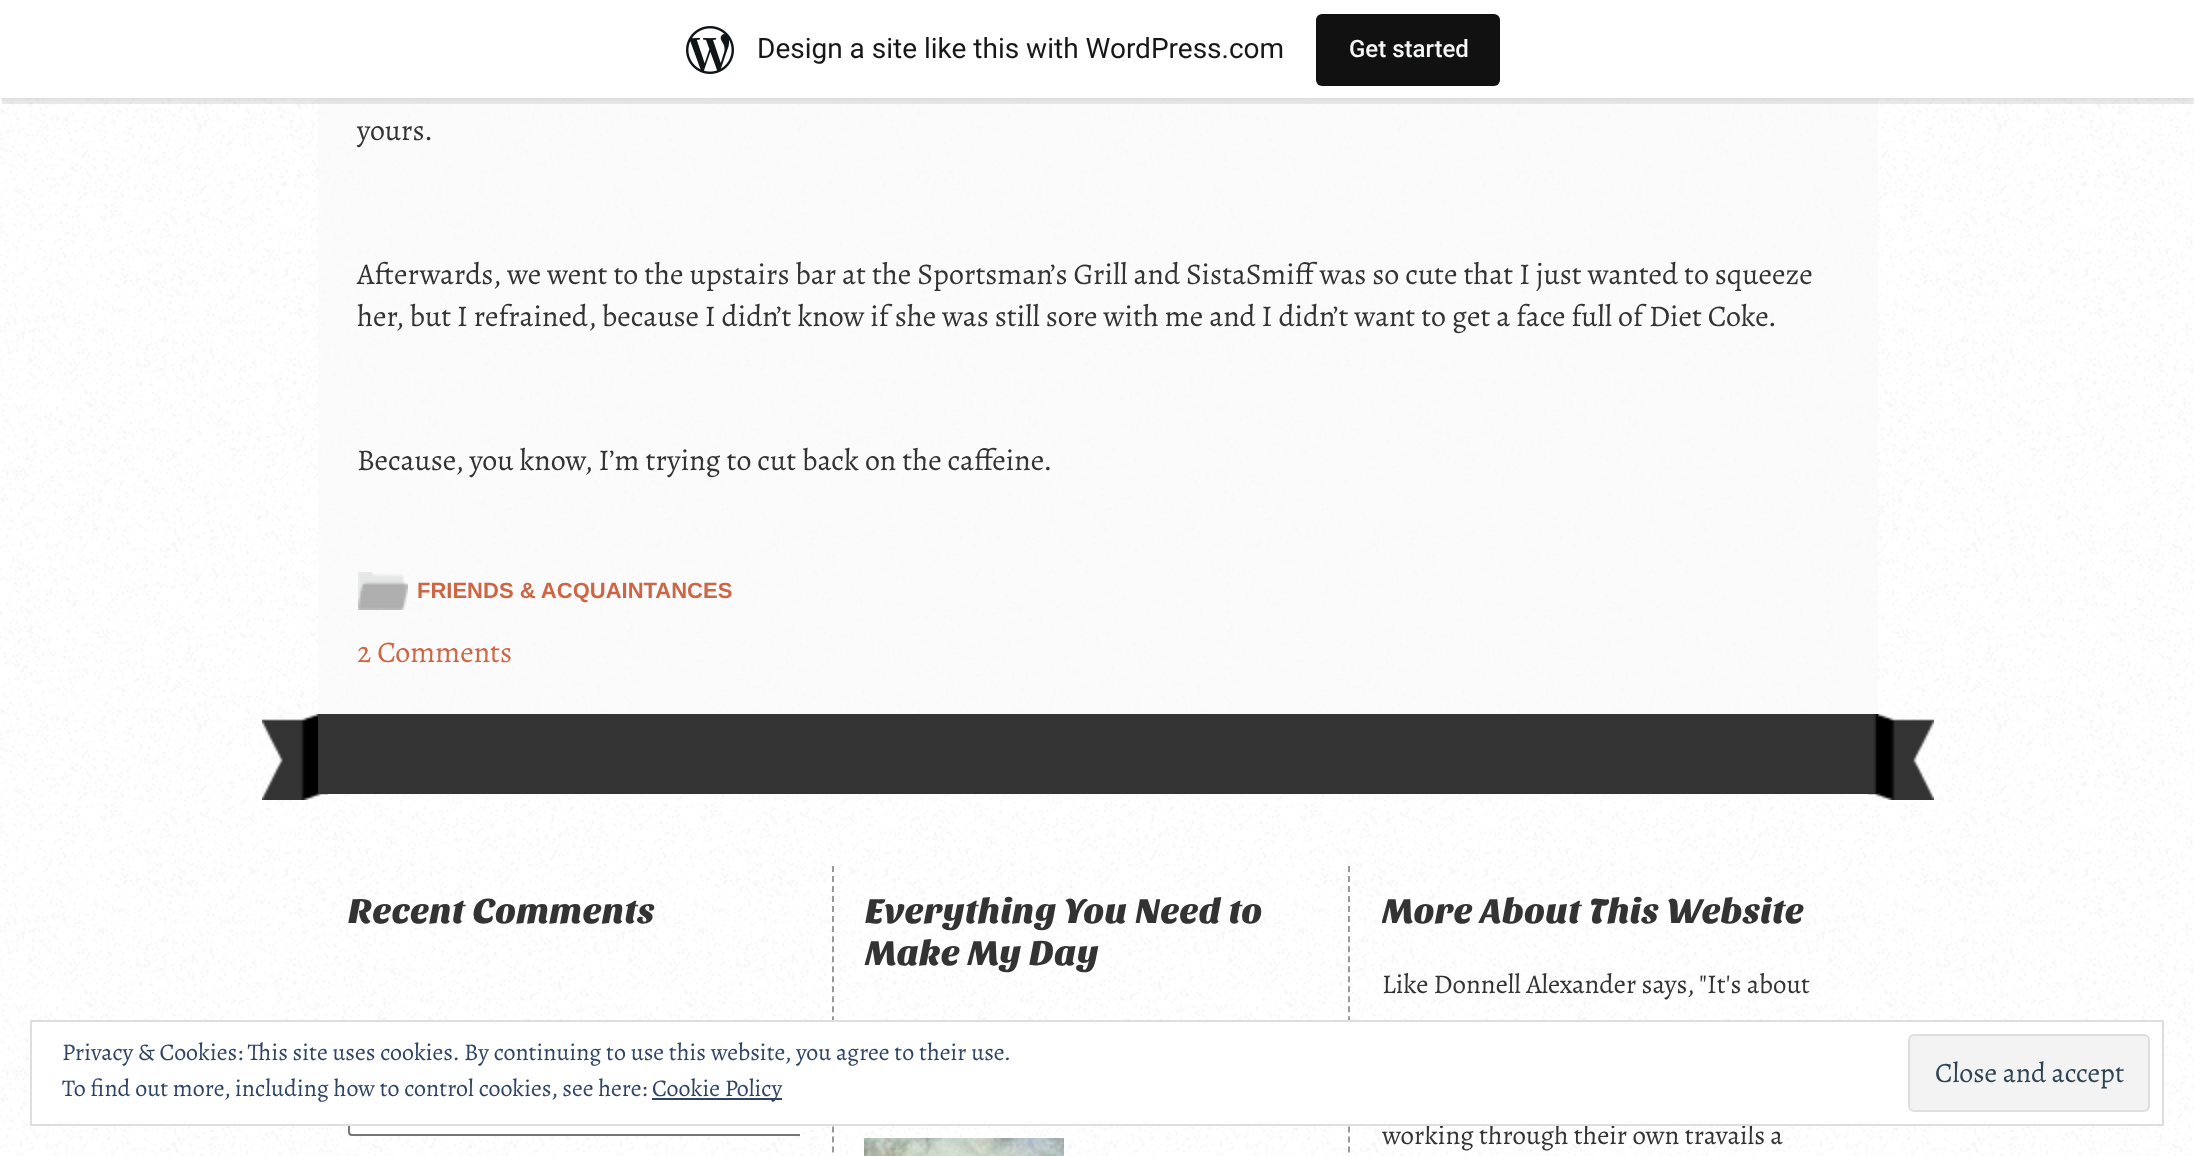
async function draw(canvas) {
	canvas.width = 2194;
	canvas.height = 1156;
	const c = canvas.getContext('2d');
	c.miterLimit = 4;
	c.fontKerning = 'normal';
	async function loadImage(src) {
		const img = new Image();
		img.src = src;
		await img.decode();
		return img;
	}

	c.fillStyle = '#fff';
	c.fillRect(0, 0, 2194, 1156);
	c.drawImage(await loadImage('img1.png'), 0, 98, 2194, 1058);
	c.fillStyle = '#fafafabf';
	c.fillRect(318, 98, 1560, 616);
	c.fillStyle = '#0000000d';
	c.filter = 'blur(2px)';
	c.beginPath();
	c.rect(0, 2, 2194, 98);
	c.fill();
	c.filter = 'none';
	c.fillStyle = '#00000014';
	c.beginPath();
	c.moveTo(2, 98);
	c.lineTo(2, 104);
	c.lineTo(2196, 104);
	c.lineTo(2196, 6);
	c.lineTo(2194, 6);
	c.lineTo(2194, 98);
	c.closePath();
	c.fill();
	c.fillStyle = '#fff';
	c.fillRect(0, 0, 2194, 98);
	c.drawImage(await loadImage('img2.png'), 686, 26, 48, 48);
	c.font = '28px Roboto';
	c.fillStyle = '#171717';
	c.fillText('Design a site like this with WordPress.com', 757, 58);
	c.fillStyle = '#111';
	c.beginPath();
	c.roundRect(1316, 14, 184, 72, 6);
	c.fill();
	c.font = '500 24px Roboto';
	c.fillStyle = '#f6f7f7';
	c.fillText('Get started', 1349, 57);
	c.font = '30px Alegreya';
	c.fillStyle = '#333';
	for (const [text, x, y] of [
		['yours.', 357, 140],
		['Afterwards, we went to the upstairs bar at the Sportsman’s Grill and SistaSmiff was so cute that I just wanted to squeeze', 357, 284],
		['her, but I refrained, because I didn’t know if she was still sore with me and I didn’t want to get a face full of Diet Coke.', 357, 326],
		['Because, you know, I’m trying to cut back on the caffeine.', 357, 470],
	]) {
		c.fillText(text, x, y);
	}
	c.drawImage(await loadImage('img3.png'), 358, 572, 50, 38);
	c.font = 'bold 22px Liberation Sans';
	c.fillStyle = '#c64';
	c.fillText('FRIENDS & ACQUAINTANCES', 417, 598);
	c.font = '30px Alegreya';
	c.fillText('2 Comments', 357, 662);
	c.drawImage(await loadImage('img4.png'), 262, 714, 66, 86);
	c.fillStyle = '#333';
	c.fillRect(318, 714, 1560, 80);
	c.drawImage(await loadImage('img5.png'), 1868, 714, 66, 86);
	c.beginPath();
	c.moveTo(833, 866);
	c.lineTo(833, 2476);
	c.strokeStyle = '#999';
	c.lineWidth = 2;
	c.setLineDash([6, 4.02]);
	c.stroke();
	c.font = '36px Sansita One';
	c.fillText('Recent Comments', 348, 923);
	c.fillStyle = '#fff';
	c.beginPath();
	c.roundRect(348, 1090, 452, 46, [4, 0, 0, 4]);
	c.fill();
	c.save();
	c.beginPath();
	c.rect(348, 998, 452, 138);
	c.clip();
	c.beginPath();
	c.roundRect(349, 1091, 698, 44, 3);
	c.strokeStyle = '#767676';
	c.setLineDash([]);
	c.stroke();
	c.restore();
	c.beginPath();
	c.moveTo(1349, 866);
	c.lineTo(1349, 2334);
	c.stroke();
	c.fillStyle = '#333';
	c.fillText('Everything You Need to', 865, 923);
	c.fillText('Make My Day', 865, 965);
	c.drawImage(await loadImage('img6.png'), 864, 1138, 200, 18);
	c.save();
	c.beginPath();
	c.rect(1382, 866, 452, 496);
	c.clip();
	c.fillText('More About This Website', 1382, 923);
	c.restore();
	c.font = '27px Alegreya';
	c.fillText('Like Donnell Alexander says, "It\'s about', 1382, 993);
	c.fillText('working through their own travails a', 1382, 1144);
	c.fillStyle = '#fff';
	c.beginPath();
	c.rect(31, 1021, 2132, 104);
	c.fill();
	c.strokeStyle = '#dedede';
	c.setLineDash([]);
	c.stroke();
	c.font = '24px Alegreya';
	c.fillStyle = '#2e4467';
	c.fillText('Privacy & Cookies: This site uses cookies. By continuing to use this website, you agree to their use.', 62, 1060);
	c.fillText('To find out more, including how to control cookies, see here:', 62, 1096);
	c.fillRect(652, 1098, 130, 2);
	c.fillText('Cookie Policy', 652, 1096);
	c.fillStyle = '#f3f3f3';
	c.beginPath();
	c.roundRect(1909, 1035, 240, 76, 5);
	c.fill();
	c.stroke();
	c.font = '28px Alegreya';
	c.fillStyle = '#2e4453';
	c.fillText('Close and accept', 1935, 1082);
}

draw(document.querySelector('canvas'));
